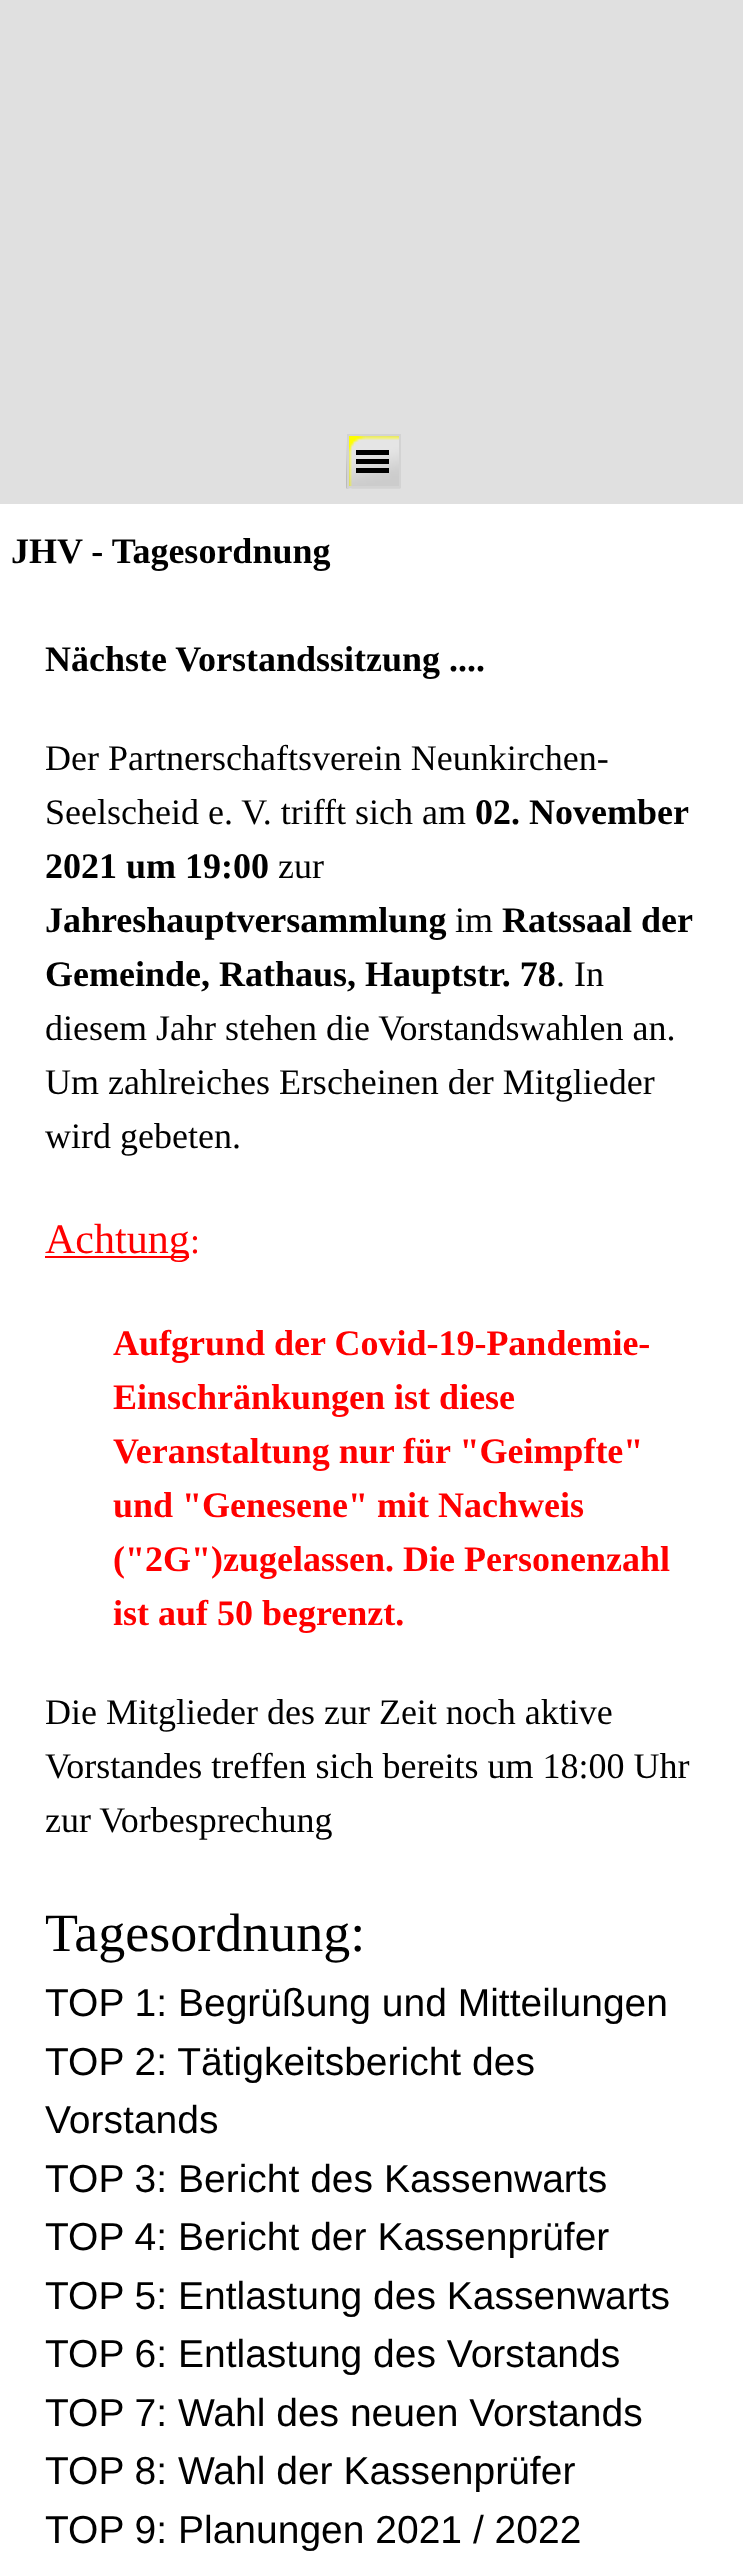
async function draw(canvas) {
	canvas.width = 743;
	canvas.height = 2563;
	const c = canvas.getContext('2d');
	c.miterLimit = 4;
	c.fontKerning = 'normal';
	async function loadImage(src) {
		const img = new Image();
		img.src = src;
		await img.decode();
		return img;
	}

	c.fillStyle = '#e0e0e0';
	c.fillRect(0, 0, 743, 2563);
	c.fillStyle = '#ff0';
	c.fillRect(349, 436, 50, 50);
	c.drawImage(await loadImage('img1.png'), 346, 436, 55, 53);
	c.strokeStyle = '#d3d3d3';
	c.lineWidth = 2;
	c.strokeRect(348, 435, 52, 52);
	for (const [x, y, w, h, color] of [
		[356, 450, 33, 5, '#000'],
		[356, 459, 33, 5, '#000'],
		[356, 468, 33, 5, '#000'],
		[0, 504, 743, 2059, '#fff'],
	]) {
		c.fillStyle = color;
		c.fillRect(x, y, w, h);
	}
	c.font = 'bold 36px Liberation Serif';
	c.fillStyle = '#000';
	c.fillText('JHV - Tagesordnung', 11, 563);
	c.fillText('Nächste Vorstandssitzung ....', 45, 671);
	c.font = '36px Liberation Serif';
	c.fillText('Der Partnerschaftsverein Neunkirchen-', 45, 770);
	c.fillText('Seelscheid e. V. trifft sich am', 45, 824);
	c.font = 'bold 36px Liberation Serif';
	c.fillText('02. November', 475, 824);
	c.fillText('2021 um 19:00', 45, 878);
	c.font = '36px Liberation Serif';
	c.fillText('zur', 278, 878);
	c.font = 'bold 36px Liberation Serif';
	c.fillText('Jahreshauptversammlung', 45, 932);
	c.font = '36px Liberation Serif';
	c.fillText('im', 455, 932);
	c.font = 'bold 36px Liberation Serif';
	c.fillText('Ratssaal der', 502, 932);
	c.fillText('Gemeinde, Rathaus, Hauptstr. 78', 45, 986);
	c.font = '36px Liberation Serif';
	for (const [text, x, y] of [
		['. In', 556, 986],
		['diesem Jahr stehen die Vorstandswahlen an.', 45, 1040],
		['Um zahlreiches Erscheinen der Mitglieder', 45, 1094],
		['wird gebeten.', 45, 1148],
	]) {
		c.fillText(text, x, y);
	}
	c.fillStyle = '#f00';
	c.fillRect(45, 1256, 144, 2);
	c.font = '42px Liberation Serif';
	c.fillText('Achtung', 45, 1253);
	c.font = '36px Liberation Serif';
	c.fillText(':', 190, 1253);
	c.font = 'bold 36px Liberation Serif';
	for (const [text, x, y] of [
		['Aufgrund der Covid-19-Pandemie-', 113, 1355],
		['Einschränkungen ist diese', 113, 1409],
		['Veranstaltung nur für "Geimpfte"', 113, 1463],
		['und "Genesene" mit Nachweis', 113, 1517],
		['("2G")zugelassen. Die Personenzahl', 113, 1571],
		['ist auf 50 begrenzt.', 113, 1625],
	]) {
		c.fillText(text, x, y);
	}
	c.font = '36px Liberation Serif';
	c.fillStyle = '#000';
	for (const [text, x, y] of [
		['Die Mitglieder des zur Zeit noch aktive', 45, 1724],
		['Vorstandes treffen sich bereits um 18:00 Uhr', 45, 1778],
		['zur Vorbesprechung', 45, 1832],
	]) {
		c.fillText(text, x, y);
	}
	c.font = '54px Liberation Serif';
	c.fillText('Tagesordnung:', 45, 1951);
	c.font = '39px Liberation Sans';
	for (const [text, x, y] of [
		['TOP 1: Begrüßung und Mitteilungen', 45, 2016],
		['TOP 2: Tätigkeitsbericht des', 45, 2075],
		['Vorstands', 45, 2133],
		['TOP 3: Bericht des Kassenwarts', 45, 2192],
		['TOP 4: Bericht der Kassenprüfer', 45, 2250],
		['TOP 5: Entlastung des Kassenwarts', 45, 2309],
		['TOP 6: Entlastung des Vorstands', 45, 2367],
		['TOP 7: Wahl des neuen Vorstands', 45, 2426],
		['TOP 8: Wahl der Kassenprüfer', 45, 2484],
		['TOP 9: Planungen 2021 / 2022', 45, 2543],
	]) {
		c.fillText(text, x, y);
	}
}

draw(document.querySelector('canvas'));
